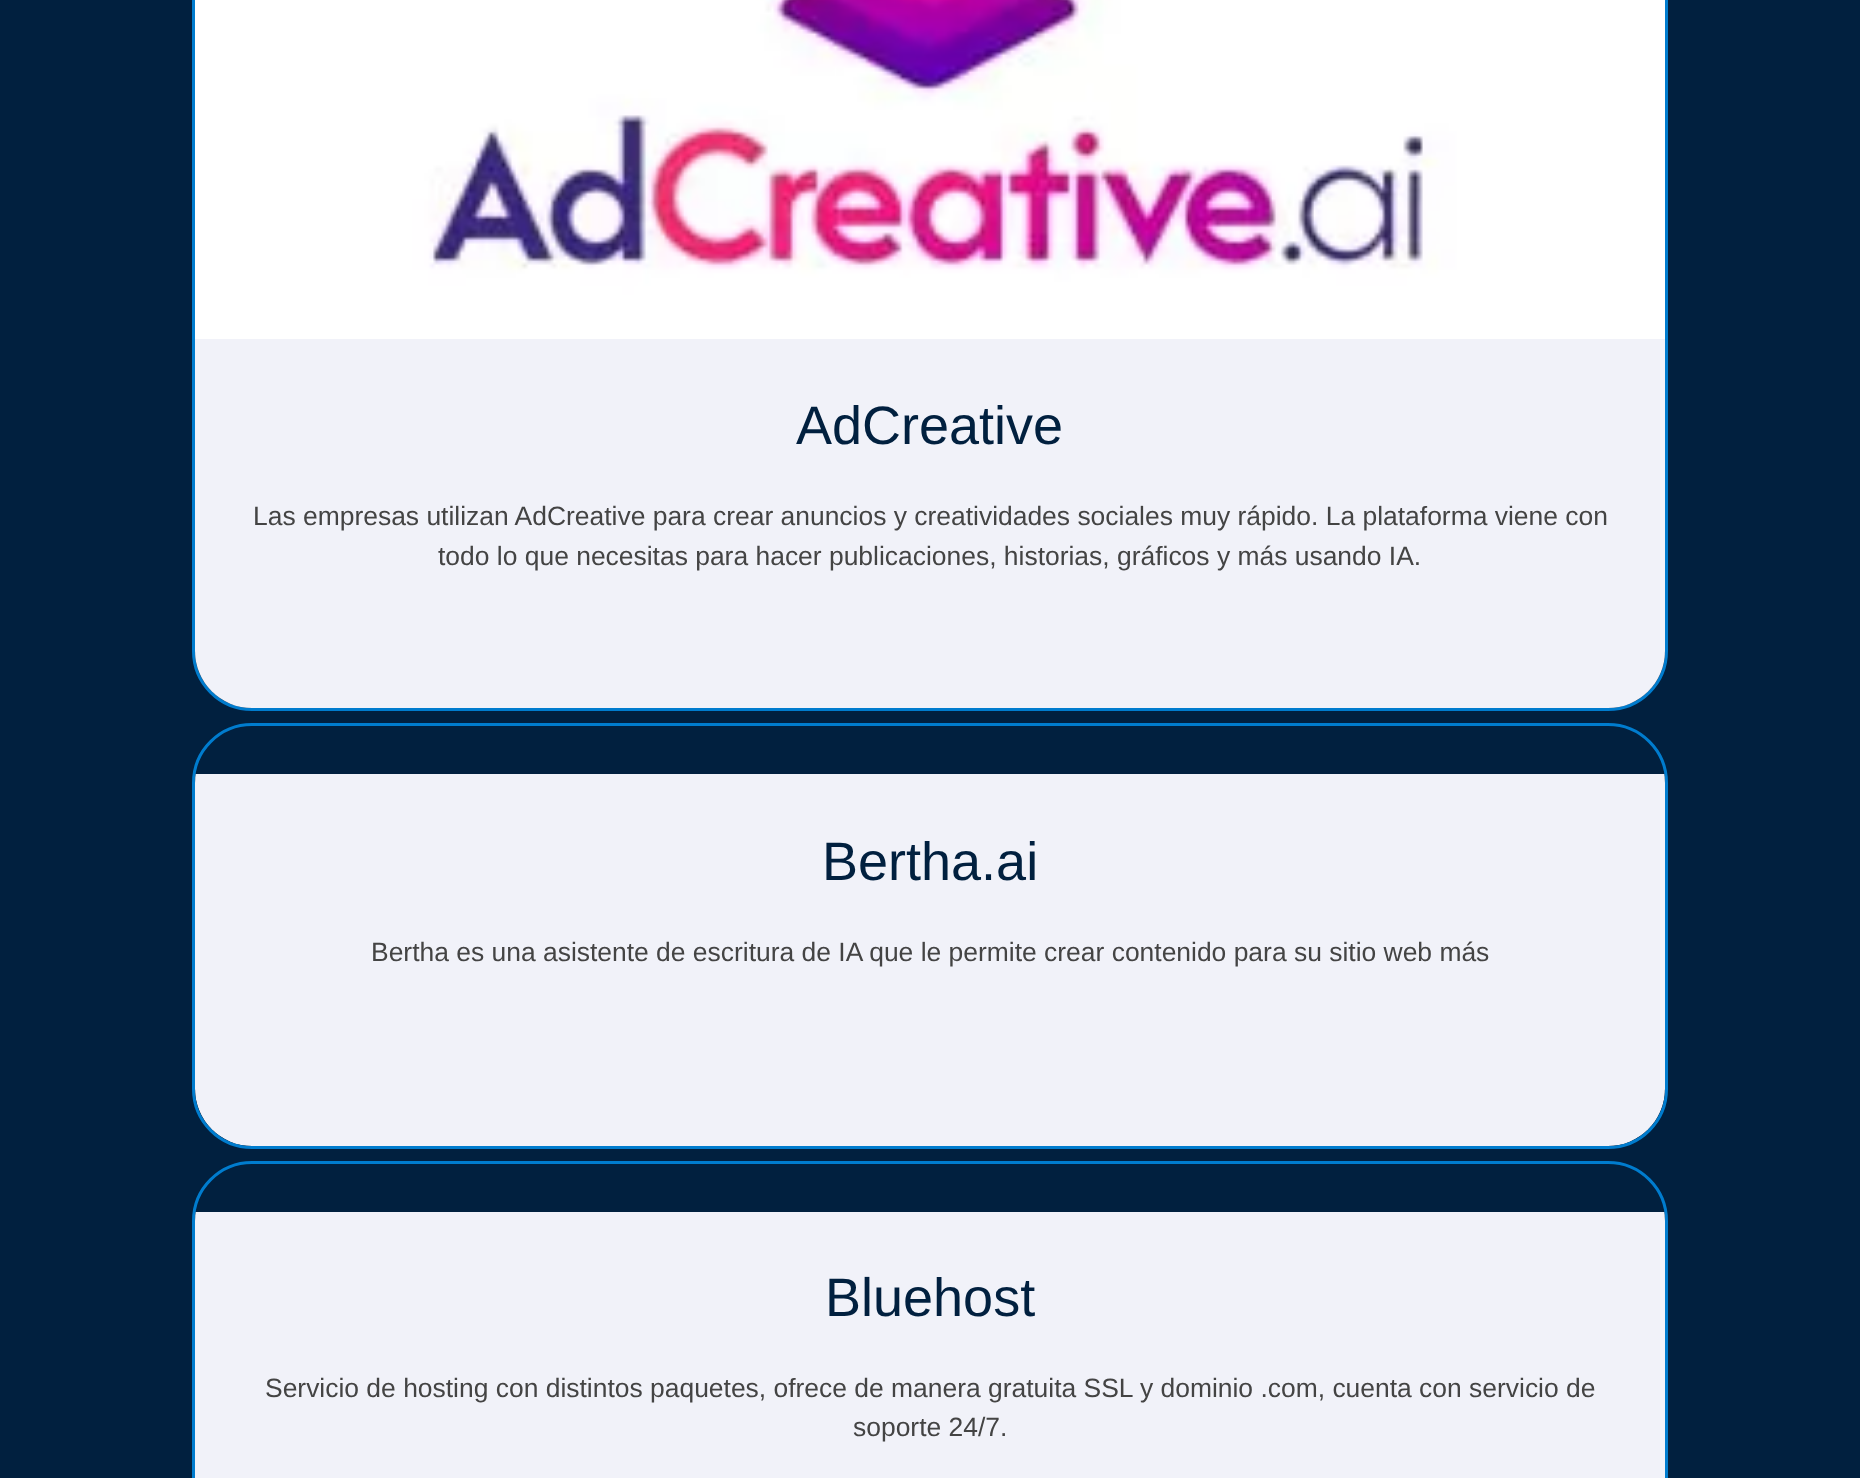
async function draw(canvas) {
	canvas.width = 1860;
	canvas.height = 1478;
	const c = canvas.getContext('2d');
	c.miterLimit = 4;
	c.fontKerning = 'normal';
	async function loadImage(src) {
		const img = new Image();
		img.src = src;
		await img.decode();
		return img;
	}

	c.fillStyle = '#01203f';
	c.fillRect(0, 0, 1860, 1478);
	c.beginPath();
	c.roundRect(193.5, -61.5, 1473, 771, 58.5);
	c.strokeStyle = '#007cce';
	c.lineWidth = 3;
	c.stroke();
	c.drawImage(await loadImage('img1.png'), 195, 0, 1470, 339);
	c.fillStyle = '#f1f2f9';
	c.beginPath();
	c.roundRect(195, 339, 1470, 369, [0, 0, 57, 57]);
	c.fill();
	c.font = '54px Liberation Sans';
	c.fillStyle = '#01203f';
	c.fillText('AdCreative', 796, 444);
	c.font = '26.45px Liberation Sans';
	c.fillStyle = '#444';
	c.fillText('Las empresas utilizan AdCreative para crear anuncios y creatividades sociales muy rápido. La plataforma viene con', 253, 525);
	c.fillText('todo lo que necesitas para hacer publicaciones, historias, gráficos y más usando IA.', 438, 565);
	c.beginPath();
	c.roundRect(193.5, 724.5, 1473, 423, 58.5);
	c.stroke();
	c.save();
	c.beginPath();
	c.roundRect(195, 726, 1470, 420, 57);
	c.clip();
	c.fillStyle = '#f1f2f9';
	c.beginPath();
	c.roundRect(195, 774, 1470, 372, [0, 0, 57, 57]);
	c.fill();
	c.restore();
	c.font = '54px Liberation Sans';
	c.fillStyle = '#01203f';
	c.fillText('Bertha.ai', 822, 880);
	c.font = '26.45px Liberation Sans';
	c.fillStyle = '#444';
	c.fillText('Bertha es una asistente de escritura de IA que le permite crear contenido para su sitio web más', 371, 961);
	c.beginPath();
	c.roundRect(193.5, 1162.5, 1473, 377, 58.5);
	c.stroke();
	c.save();
	c.beginPath();
	c.roundRect(195, 1164, 1470, 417, 57);
	c.clip();
	c.fillStyle = '#f1f2f9';
	c.beginPath();
	c.moveTo(195, 1212);
	c.lineTo(1665, 1212);
	c.lineTo(1665, 1478);
	c.bezierCurveTo(1665, 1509.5, 1639.5, 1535, 1608, 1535);
	c.lineTo(252, 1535);
	c.bezierCurveTo(220.5, 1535, 195, 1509.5, 195, 1478);
	c.closePath();
	c.fill();
	c.restore();
	c.font = '54px Liberation Sans';
	c.fillStyle = '#01203f';
	c.fillText('Bluehost', 825, 1316);
	c.font = '26.45px Liberation Sans';
	c.fillStyle = '#444';
	c.fillText('Servicio de hosting con distintos paquetes, ofrece de manera gratuita SSL y dominio .com, cuenta con servicio de', 265, 1397);
	c.fillText('soporte 24/7.', 853, 1436);
}

draw(document.querySelector('canvas'));
